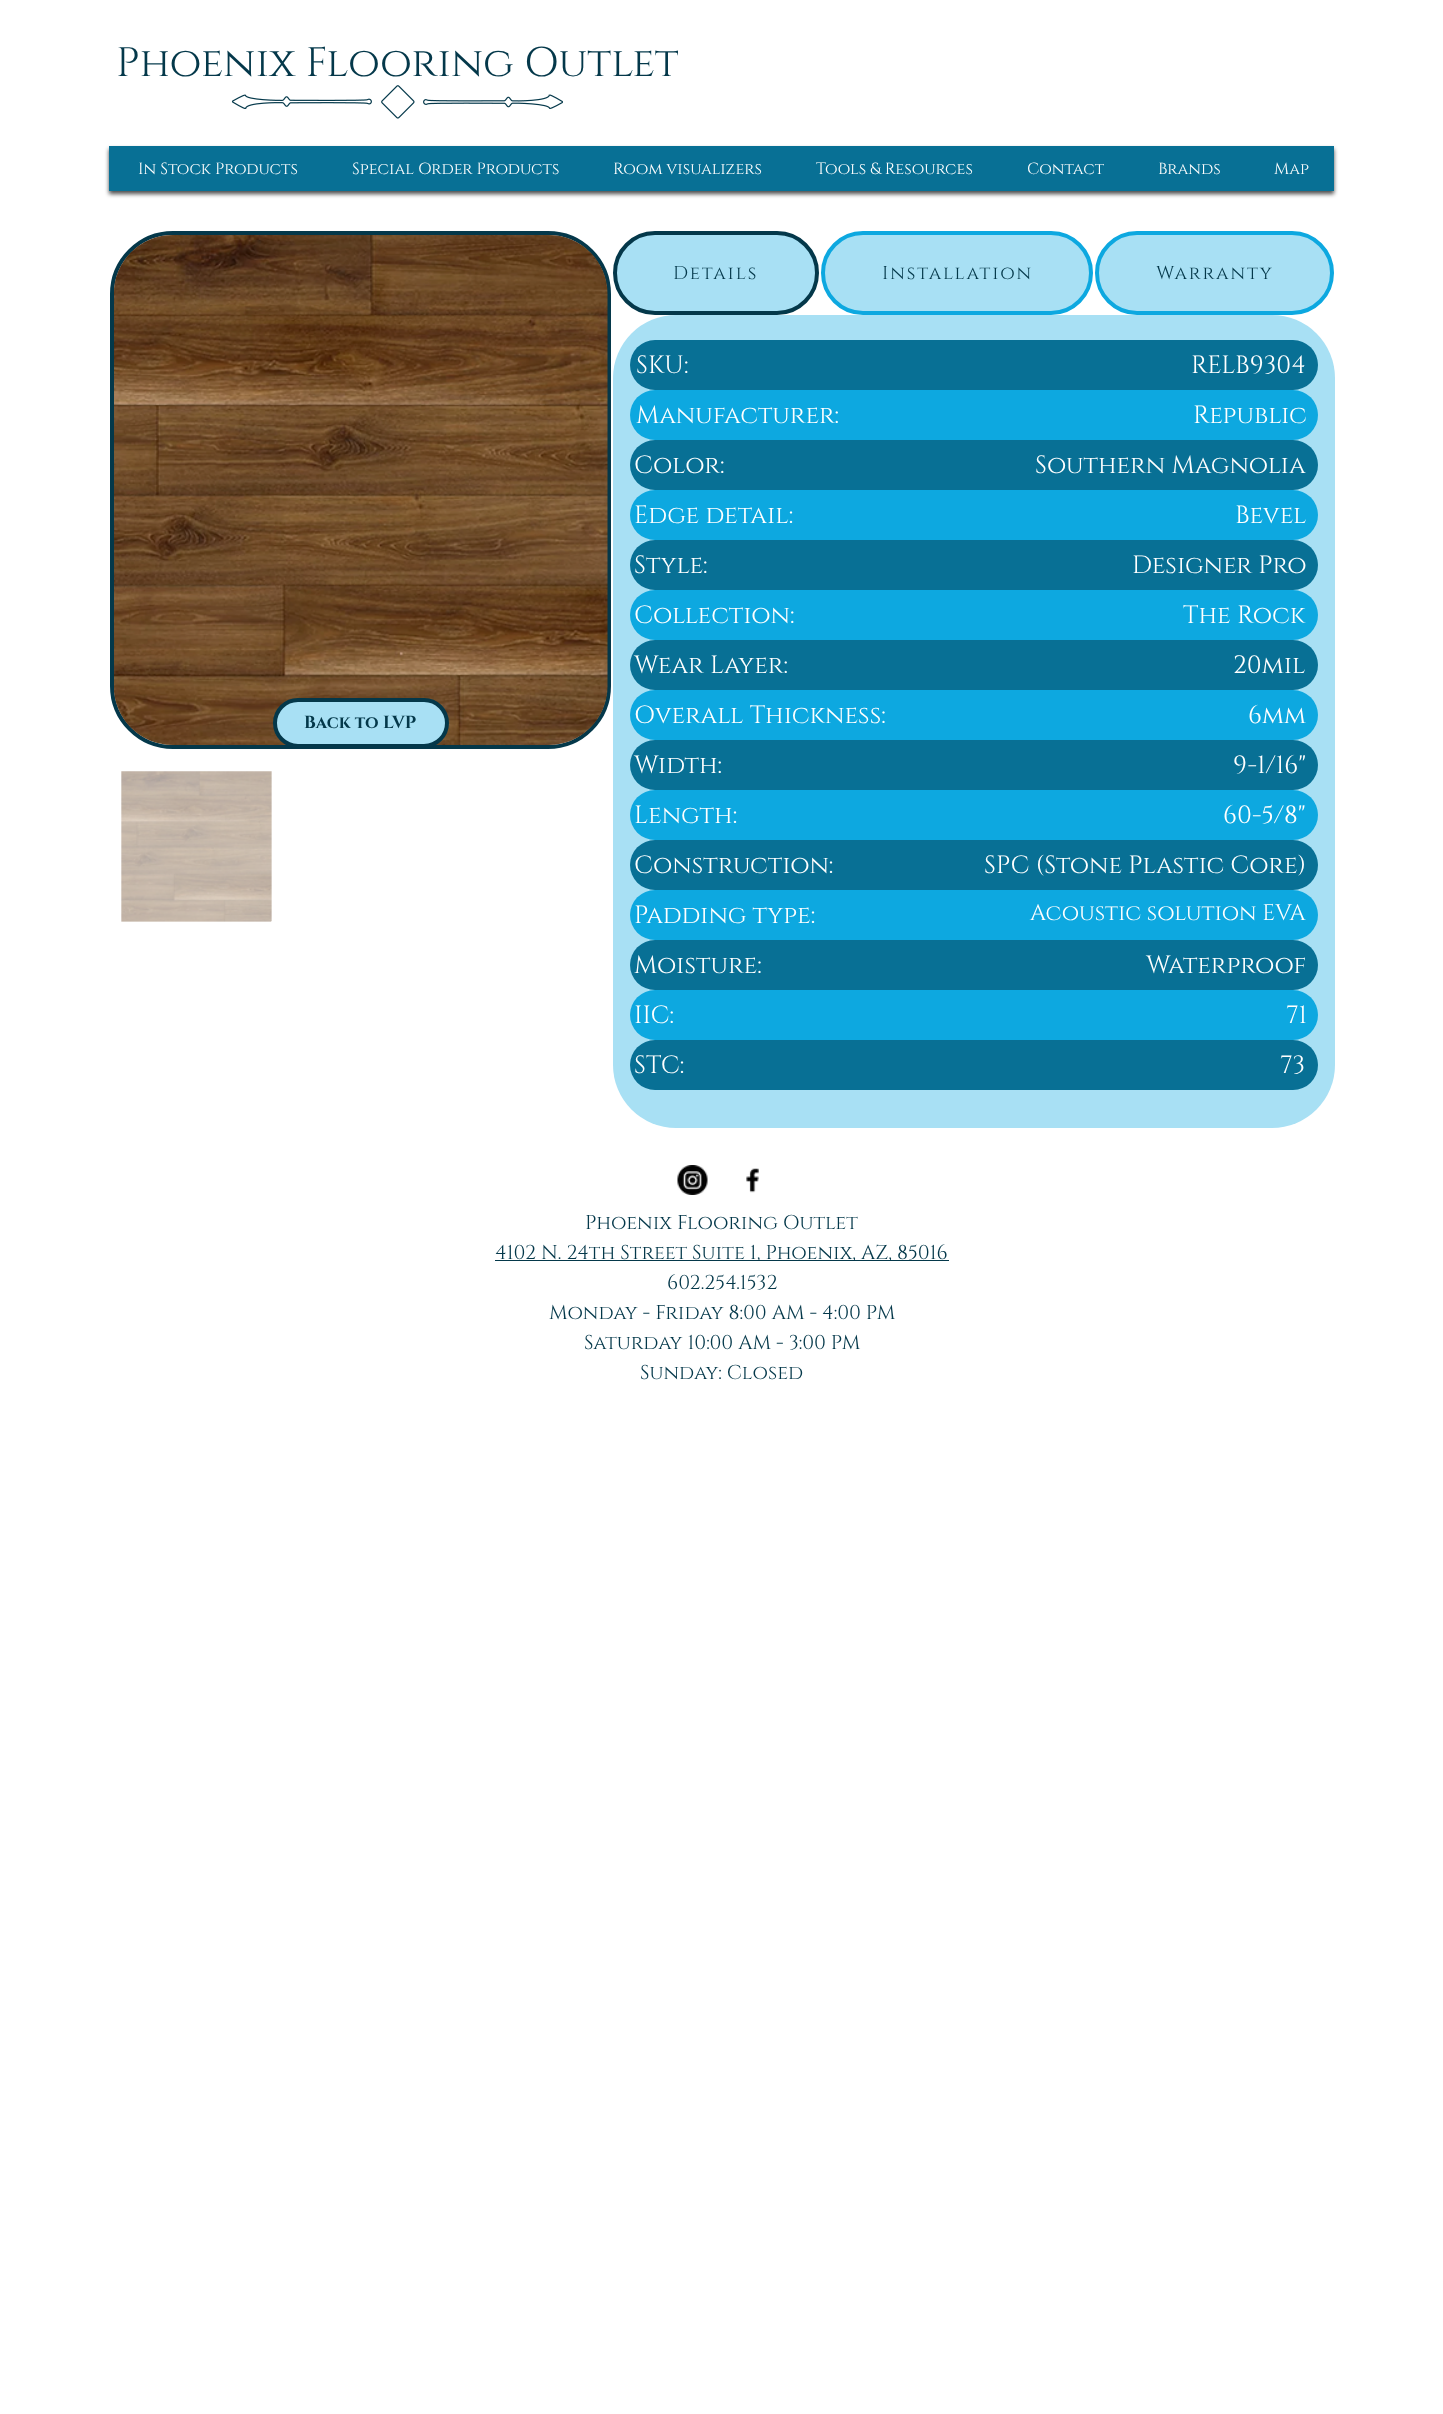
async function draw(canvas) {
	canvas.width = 1443;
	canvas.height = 2414;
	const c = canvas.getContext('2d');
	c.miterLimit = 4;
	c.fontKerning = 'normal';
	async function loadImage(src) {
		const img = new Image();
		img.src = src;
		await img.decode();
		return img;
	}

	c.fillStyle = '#fff';
	c.fillRect(0, 0, 1443, 2414);
	c.font = '41.25px Cinzel';
	c.fillStyle = '#04384a';
	c.fillText('Phoenix Flooring Outlet', 116, 76);
	c.drawImage(await loadImage('img1.png'), 231, 85, 332, 34);
	c.fillStyle = '#000000b3';
	c.filter = 'blur(2px)';
	c.beginPath();
	c.rect(109, 149, 1225, 45);
	c.fill();
	c.filter = 'none';
	c.fillStyle = '#087095';
	c.fillRect(109, 146, 1225, 45);
	c.font = '16.25px Cinzel';
	c.fillStyle = '#fff';
	for (const [text, x, y] of [
		['In Stock Products', 138, 174],
		['Special Order Products', 352, 174],
		['Room visualizers', 613, 174],
		['Tools & Resources', 816, 174],
		['Contact', 1027, 174],
		['Brands', 1158, 174],
		['Map', 1274, 174],
	]) {
		c.fillText(text, x, y);
	}
	c.beginPath();
	c.roundRect(112, 233, 497, 514, 61);
	c.strokeStyle = '#04384a';
	c.lineWidth = 4;
	c.stroke();
	c.drawImage(await loadImage('img2.png'), 114, 235, 494, 510);
	c.drawImage(await loadImage('img3.png'), 121, 771, 151, 151);
	c.fillStyle = '#a8e0f4';
	c.beginPath();
	c.roundRect(615, 233, 202, 80, 40);
	c.fill();
	c.stroke();
	c.letterSpacing = '1.9px';
	c.font = '18.75px Cinzel';
	c.fillStyle = '#04384a';
	c.fillText('Details', 673, 279);
	c.fillStyle = '#a8e0f4';
	c.beginPath();
	c.roundRect(823, 233, 268, 80, 40);
	c.fill();
	c.strokeStyle = '#0da8e0';
	c.stroke();
	c.fillStyle = '#04384a';
	c.fillText('Installation', 882, 279);
	c.fillStyle = '#a8e0f4';
	c.beginPath();
	c.roundRect(1097, 233, 235, 80, 40);
	c.fill();
	c.stroke();
	c.fillStyle = '#04384a';
	c.fillText('Warranty', 1156, 279);
	c.fillStyle = '#a8e0f4';
	c.beginPath();
	c.roundRect(613, 315, 722, 813, 63);
	c.fill();
	c.fillStyle = '#087095';
	c.beginPath();
	c.roundRect(630, 340, 688, 50, 25);
	c.fill();
	c.letterSpacing = '0px';
	c.font = '25px Cinzel';
	c.fillStyle = '#fff';
	c.fillText('SKU:', 636, 373);
	c.fillText('RELB9304', 1191, 373);
	c.fillStyle = '#0da8e0';
	c.beginPath();
	c.roundRect(630, 390, 688, 50, 25);
	c.fill();
	c.fillStyle = '#fff';
	c.fillText('Manufacturer:', 636, 423);
	c.fillText('Republic', 1193, 423);
	c.fillStyle = '#087095';
	c.beginPath();
	c.roundRect(630, 440, 688, 50, 25);
	c.fill();
	c.fillStyle = '#fff';
	c.fillText('Color:', 634, 473);
	c.fillText('Southern Magnolia', 1035, 473);
	c.fillStyle = '#0da8e0';
	c.beginPath();
	c.roundRect(630, 490, 688, 50, 25);
	c.fill();
	c.fillStyle = '#fff';
	c.fillText('Edge detail:', 634, 523);
	c.fillText('Bevel', 1235, 523);
	c.fillStyle = '#087095';
	c.beginPath();
	c.roundRect(630, 540, 688, 50, 25);
	c.fill();
	c.fillStyle = '#fff';
	c.fillText('Style:', 634, 573);
	c.fillText('Designer Pro', 1132, 573);
	c.fillStyle = '#0da8e0';
	c.beginPath();
	c.roundRect(630, 590, 688, 50, 25);
	c.fill();
	c.fillStyle = '#fff';
	c.fillText('Collection:', 634, 623);
	c.fillText('The Rock', 1183, 623);
	c.fillStyle = '#087095';
	c.beginPath();
	c.roundRect(630, 640, 688, 50, 25);
	c.fill();
	c.fillStyle = '#fff';
	c.fillText('Wear Layer:', 634, 673);
	c.fillText('20mil', 1233, 673);
	c.fillStyle = '#0da8e0';
	c.beginPath();
	c.roundRect(630, 690, 688, 50, 25);
	c.fill();
	c.fillStyle = '#fff';
	c.fillText('Overall Thickness:', 634, 723);
	c.fillText('6mm', 1248, 723);
	c.fillStyle = '#087095';
	c.beginPath();
	c.roundRect(630, 740, 688, 50, 25);
	c.fill();
	c.fillStyle = '#fff';
	c.fillText('Width:', 634, 773);
	c.fillText('9-1/16"', 1233, 773);
	c.fillStyle = '#0da8e0';
	c.beginPath();
	c.roundRect(630, 790, 688, 50, 25);
	c.fill();
	c.fillStyle = '#fff';
	c.fillText('Length:', 634, 823);
	c.fillText('60-5/8"', 1223, 823);
	c.fillStyle = '#087095';
	c.beginPath();
	c.roundRect(630, 840, 688, 50, 25);
	c.fill();
	c.fillStyle = '#fff';
	c.fillText('Construction:', 634, 873);
	c.fillText('SPC (Stone Plastic Core)', 984, 873);
	c.fillStyle = '#0da8e0';
	c.beginPath();
	c.roundRect(630, 890, 688, 50, 25);
	c.fill();
	c.fillStyle = '#fff';
	c.fillText('Padding type:', 634, 923);
	c.font = '22.5px Cinzel';
	c.fillText('Acoustic solution EVA', 1030, 920);
	c.fillStyle = '#087095';
	c.beginPath();
	c.roundRect(630, 940, 688, 50, 25);
	c.fill();
	c.font = '25px Cinzel';
	c.fillStyle = '#fff';
	c.fillText('Moisture:', 634, 973);
	c.fillText('Waterproof', 1146, 973);
	c.fillStyle = '#0da8e0';
	c.beginPath();
	c.roundRect(630, 990, 688, 50, 25);
	c.fill();
	c.fillStyle = '#fff';
	c.fillText('IIC:', 634, 1023);
	c.fillText('71', 1286, 1023);
	c.fillStyle = '#087095';
	c.beginPath();
	c.roundRect(630, 1040, 688, 50, 25);
	c.fill();
	c.fillStyle = '#fff';
	c.fillText('STC:', 634, 1073);
	c.fillText('73', 1280, 1073);
	c.fillStyle = '#a8e0f4';
	c.beginPath();
	c.roundRect(275, 700, 172, 46, 23);
	c.fill();
	c.strokeStyle = '#04384a';
	c.stroke();
	c.font = 'bold 17.5px Cinzel';
	c.fillStyle = '#04384a';
	c.fillText('Back to LVP', 304, 728);
	c.drawImage(await loadImage('img4.png'), 677, 1165, 31, 30);
	c.drawImage(await loadImage('img5.png'), 746, 1168, 13, 25);
	c.font = '20px Cinzel';
	c.fillText('Phoenix Flooring Outlet', 585, 1229);
	c.fillRect(495, 1260, 454, 1);
	for (const [text, x, y] of [
		['4102 N. 24th Street Suite 1, Phoenix, AZ, 85016', 495, 1259],
		['602.254.1532', 667, 1289],
		['Monday - Friday 8:00 AM - 4:00 PM', 549, 1319],
		['Saturday 10:00 AM - 3:00 PM', 584, 1349],
		['Sunday: Closed', 640, 1379],
	]) {
		c.fillText(text, x, y);
	}
}

draw(document.querySelector('canvas'));
